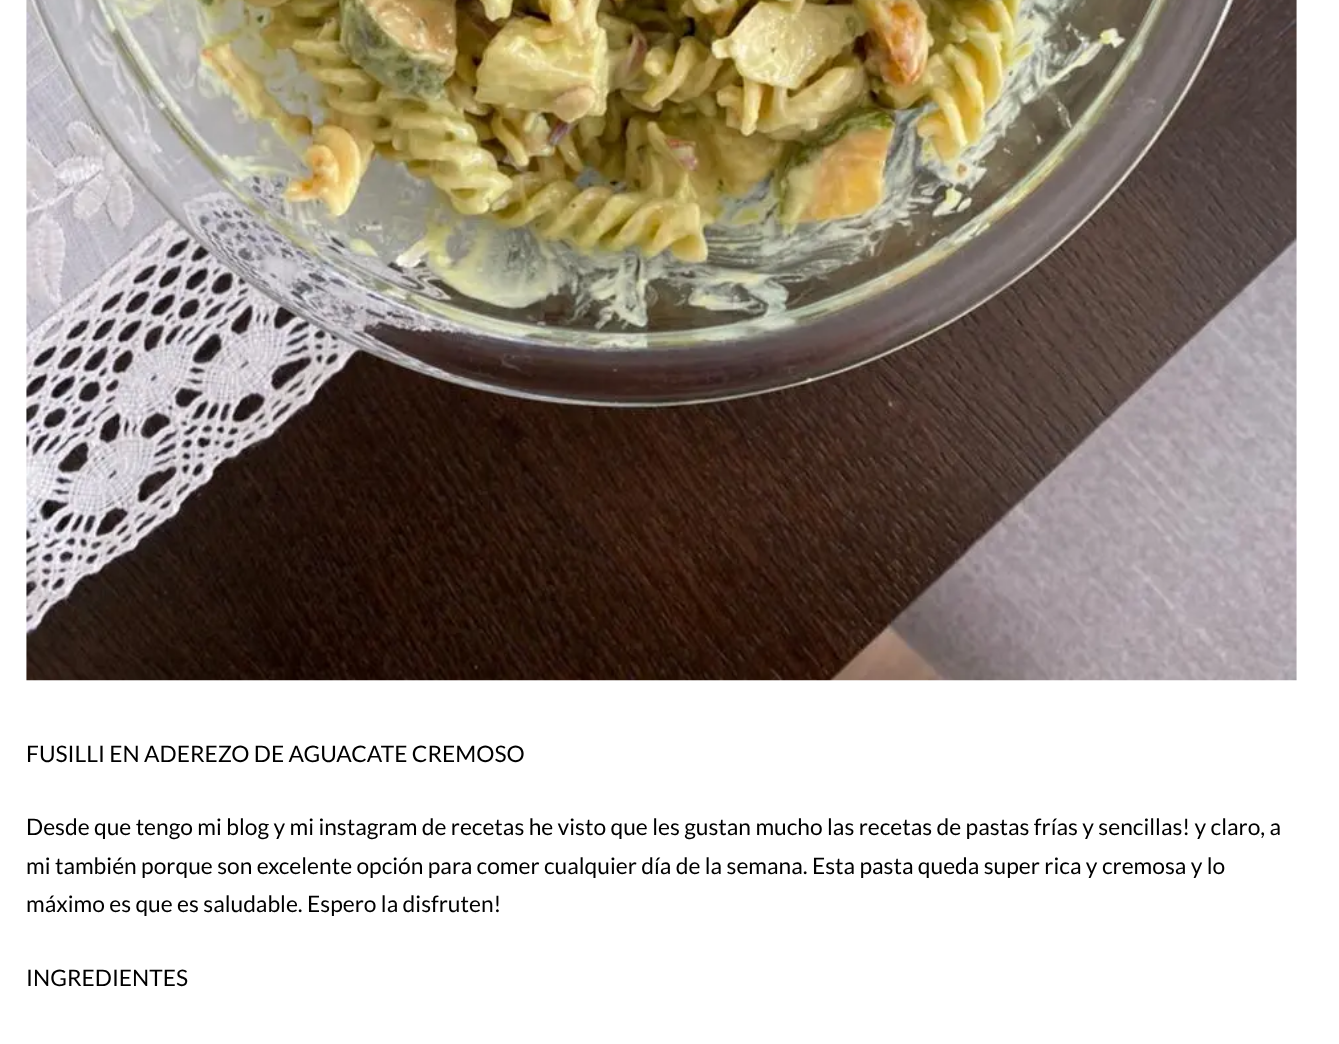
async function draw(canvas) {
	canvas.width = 1339;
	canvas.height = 1044;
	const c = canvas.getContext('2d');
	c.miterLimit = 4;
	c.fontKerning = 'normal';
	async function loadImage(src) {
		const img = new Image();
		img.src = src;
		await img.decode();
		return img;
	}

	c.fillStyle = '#fff';
	c.fillRect(0, 0, 1339, 1044);
	c.drawImage(await loadImage('img1.png'), 26, 0, 1271, 681);
	c.font = '22.75px Lato';
	c.fillStyle = '#000';
	for (const [text, x, y] of [
		['FUSILLI EN ADEREZO DE AGUACATE CREMOSO', 26, 762],
		['Desde que tengo mi blog y mi instagram de recetas he visto que les gustan mucho las recetas de pastas frías y sencillas! y claro, a', 26, 835],
		['mi también porque son excelente opción para comer cualquier día de la semana. Esta pasta queda super rica y cremosa y lo', 26, 874],
		['máximo es que es saludable. Espero la disfruten!', 26, 912],
		['INGREDIENTES', 26, 986],
	]) {
		c.fillText(text, x, y);
	}
}

draw(document.querySelector('canvas'));
